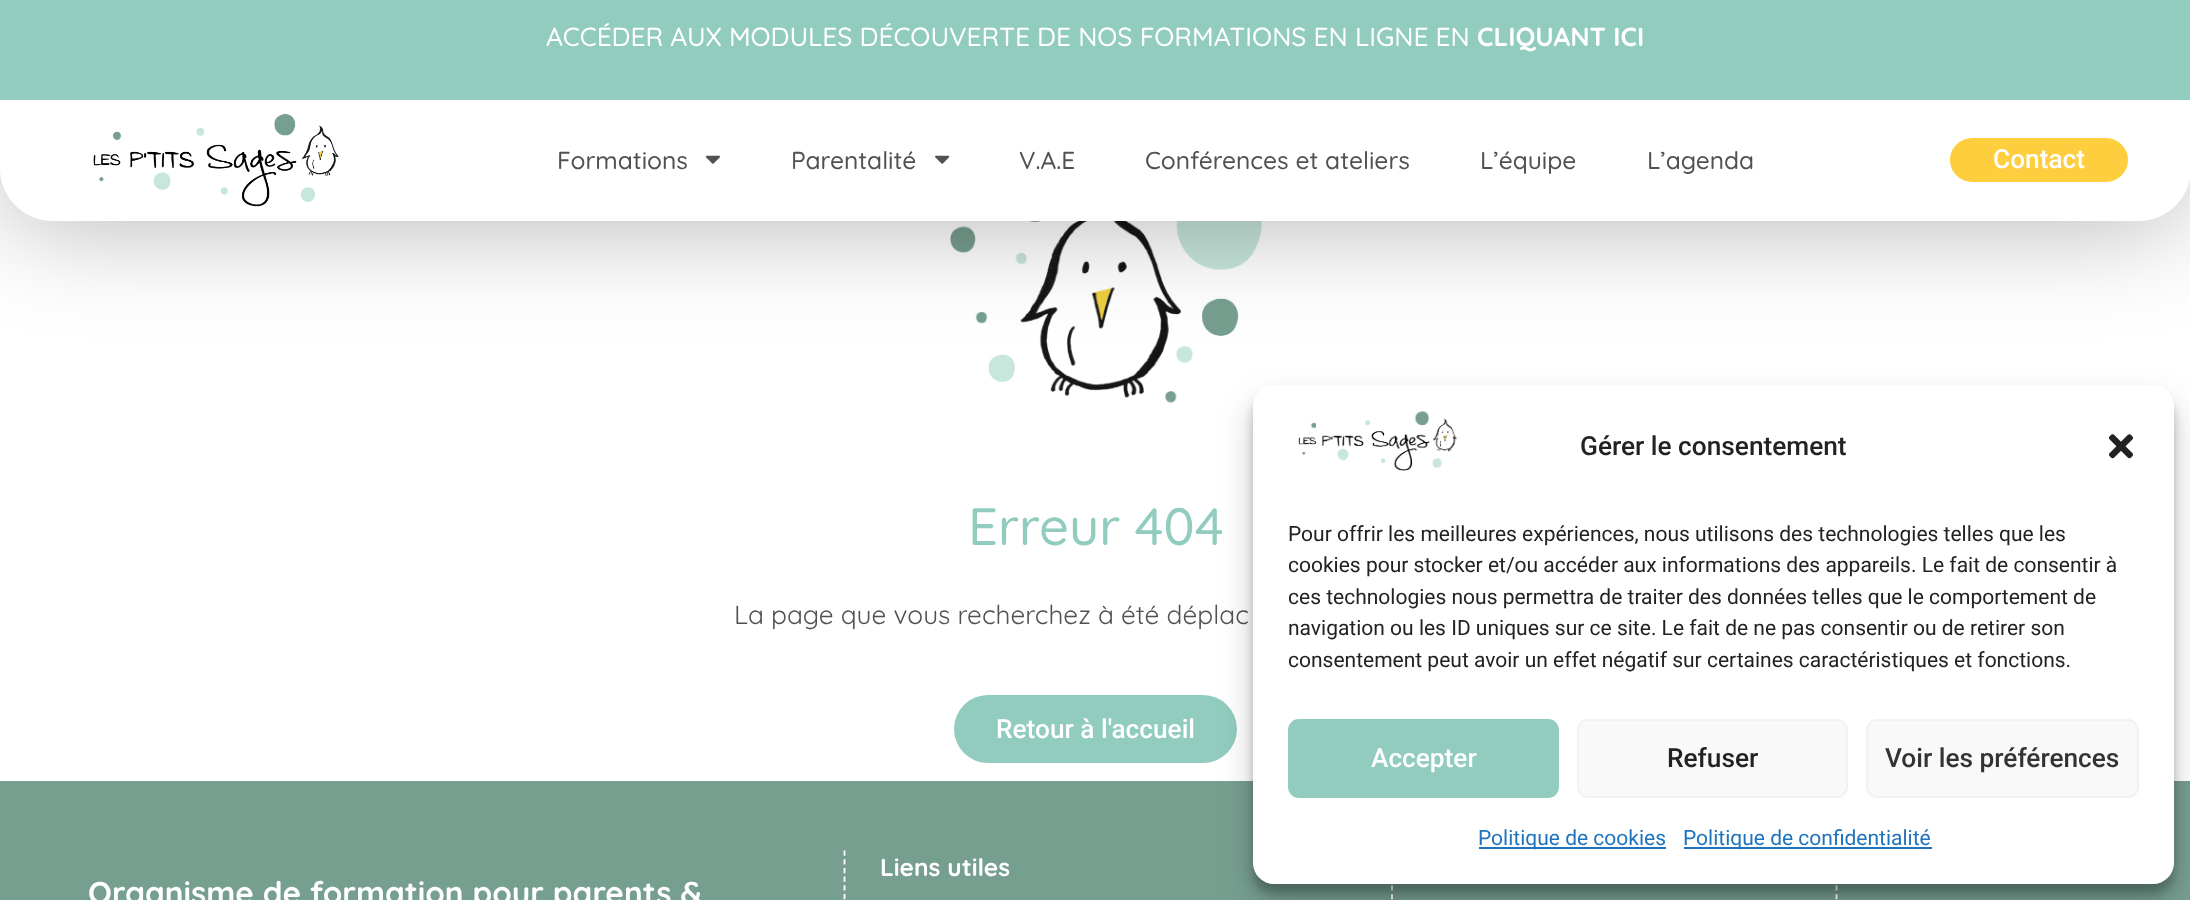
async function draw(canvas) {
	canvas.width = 2190;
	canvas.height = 900;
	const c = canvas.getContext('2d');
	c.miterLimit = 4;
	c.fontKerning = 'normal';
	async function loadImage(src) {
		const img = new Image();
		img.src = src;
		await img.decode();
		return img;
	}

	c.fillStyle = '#fff';
	c.fillRect(0, 0, 2190, 900);
	c.drawImage(await loadImage('img4.png'), 950, 221, 312, 182);
	c.fillStyle = '#0000004f';
	c.filter = 'blur(54px)';
	c.beginPath();
	c.roundRect(0, 100, 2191, 121, 53);
	c.fill();
	c.filter = 'none';
	c.fillStyle = '#91ccbf';
	c.fillRect(0, 0, 2190, 100);
	c.font = '500 26.25px Quicksand';
	c.fillStyle = '#fff';
	c.fillText('ACCÉDER AUX MODULES DÉCOUVERTE DE NOS FORMATIONS EN LIGNE EN', 546, 46);
	c.font = 'bold 26.25px Quicksand';
	c.fillText('CLIQUANT ICI', 1477, 46);
	c.beginPath();
	c.moveTo(0, 100);
	c.lineTo(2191, 100);
	c.lineTo(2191, 168);
	c.bezierCurveTo(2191, 197.5, 2167.5, 221, 2138, 221);
	c.lineTo(53, 221);
	c.bezierCurveTo(23.5, 221, 0, 197.5, 0, 168);
	c.closePath();
	c.fill();
	c.drawImage(await loadImage('img1.png'), 93, 113, 246, 94);
	c.font = '500 24.5px Quicksand';
	c.fillStyle = '#515151';
	c.fillText('Formations', 557, 169);
	c.drawImage(await loadImage('img2.png'), 705, 155, 15, 9);
	c.fillText('Parentalité', 791, 169);
	c.drawImage(await loadImage('img3.png'), 935, 155, 15, 9);
	for (const [text, x, y] of [
		['V.A.E', 1019, 169],
		['Conférences et ateliers', 1145, 169],
		['L’équipe', 1480, 169],
		['L’agenda', 1647, 169],
	]) {
		c.fillText(text, x, y);
	}
	c.fillStyle = '#ffce3e';
	c.beginPath();
	c.roundRect(1950, 138, 178, 44, 22);
	c.fill();
	c.font = '500 26.25px Roboto';
	c.fillStyle = '#fff';
	c.fillText('Contact', 1993, 168);
	c.font = '500 52.5px Quicksand';
	c.fillStyle = '#91ccbf';
	c.fillText('Erreur 404', 968, 545);
	c.font = '26.25px Quicksand';
	c.fillStyle = '#515151';
	c.fillText('La page que vous recherchez à été déplac', 734, 624);
	c.fillStyle = '#91ccbf';
	c.beginPath();
	c.roundRect(954, 695, 283, 68, 34);
	c.fill();
	c.font = '500 26.25px Roboto';
	c.fillStyle = '#fff';
	c.fillText('Retour à l\'accueil', 996, 738);
	c.fillStyle = '#779f90';
	c.fillRect(0, 781, 2190, 119);
	c.beginPath();
	c.moveTo(1392, 850.5);
	c.lineTo(1392, 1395);
	c.strokeStyle = '#fff';
	c.lineWidth = 1.8;
	c.setLineDash([5.25, 3.45]);
	c.stroke();
	c.beginPath();
	c.moveTo(1836.5, 850.5);
	c.lineTo(1836.5, 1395);
	c.stroke();
	c.fillStyle = '#0000003b';
	c.filter = 'blur(5px)';
	c.beginPath();
	c.roundRect(1253, 396, 921, 498, 21);
	c.fill();
	c.filter = 'none';
	c.fillStyle = '#00000030';
	c.filter = 'blur(17.5px)';
	c.beginPath();
	c.roundRect(1253, 403, 921, 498, 21);
	c.fill();
	c.filter = 'none';
	c.fillStyle = '#fff';
	c.beginPath();
	c.roundRect(1253, 385, 921, 499, 21);
	c.fill();
	c.drawImage(await loadImage('img5.png'), 1298, 411, 160, 60);
	c.fillStyle = '#222';
	c.fillText('Gérer le consentement', 1580, 455);
	c.drawImage(await loadImage('img6.png'), 2109, 434, 24, 25);
	c.font = '21px Roboto';
	for (const [text, x, y] of [
		['Pour offrir les meilleures expériences, nous utilisons des technologies telles que les', 1288, 541],
		['cookies pour stocker et/ou accéder aux informations des appareils. Le fait de consentir à', 1288, 572],
		['ces technologies nous permettra de traiter des données telles que le comportement de', 1288, 604],
		['navigation ou les ID uniques sur ce site. Le fait de ne pas consentir ou de retirer son', 1288, 635],
		['consentement peut avoir un effet négatif sur certaines caractéristiques et fonctions.', 1288, 667],
	]) {
		c.fillText(text, x, y);
	}
	c.fillStyle = '#91ccbf';
	c.beginPath();
	c.roundRect(1289, 720, 269, 77, 10);
	c.fill();
	c.strokeStyle = '#91ccbf';
	c.lineWidth = 2;
	c.setLineDash([]);
	c.stroke();
	c.font = '500 26.25px Roboto';
	c.fillStyle = '#fff';
	c.fillText('Accepter', 1371, 767);
	c.fillStyle = '#f9f9f9';
	c.beginPath();
	c.roundRect(1578, 720, 269, 77, 10);
	c.fill();
	c.strokeStyle = '#f2f2f2';
	c.stroke();
	c.fillStyle = '#222';
	c.fillText('Refuser', 1667, 767);
	c.fillStyle = '#f9f9f9';
	c.beginPath();
	c.roundRect(1867, 720, 271, 77, 10);
	c.fill();
	c.stroke();
	c.fillStyle = '#333';
	c.fillText('Voir les préférences', 1885, 767);
	c.fillStyle = '#1e73be';
	c.fillRect(1479, 847, 187, 2);
	c.font = '21px Roboto';
	c.fillText('Politique de cookies', 1478, 845);
	c.fillRect(1684, 847, 248, 2);
	c.fillText('Politique de confidentialité', 1683, 845);
	c.beginPath();
	c.moveTo(844.5, 850.5);
	c.lineTo(844.5, 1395);
	c.strokeStyle = '#fff';
	c.lineWidth = 1.8;
	c.setLineDash([5.25, 3.45]);
	c.stroke();
	c.font = 'bold 24.5px Quicksand';
	c.fillStyle = '#fff';
	c.fillText('Liens utiles', 880, 876);
	c.font = 'bold 31.5px Quicksand';
	c.fillText('Organisme de formation pour parents &', 88, 904);
}

draw(document.querySelector('canvas'));
